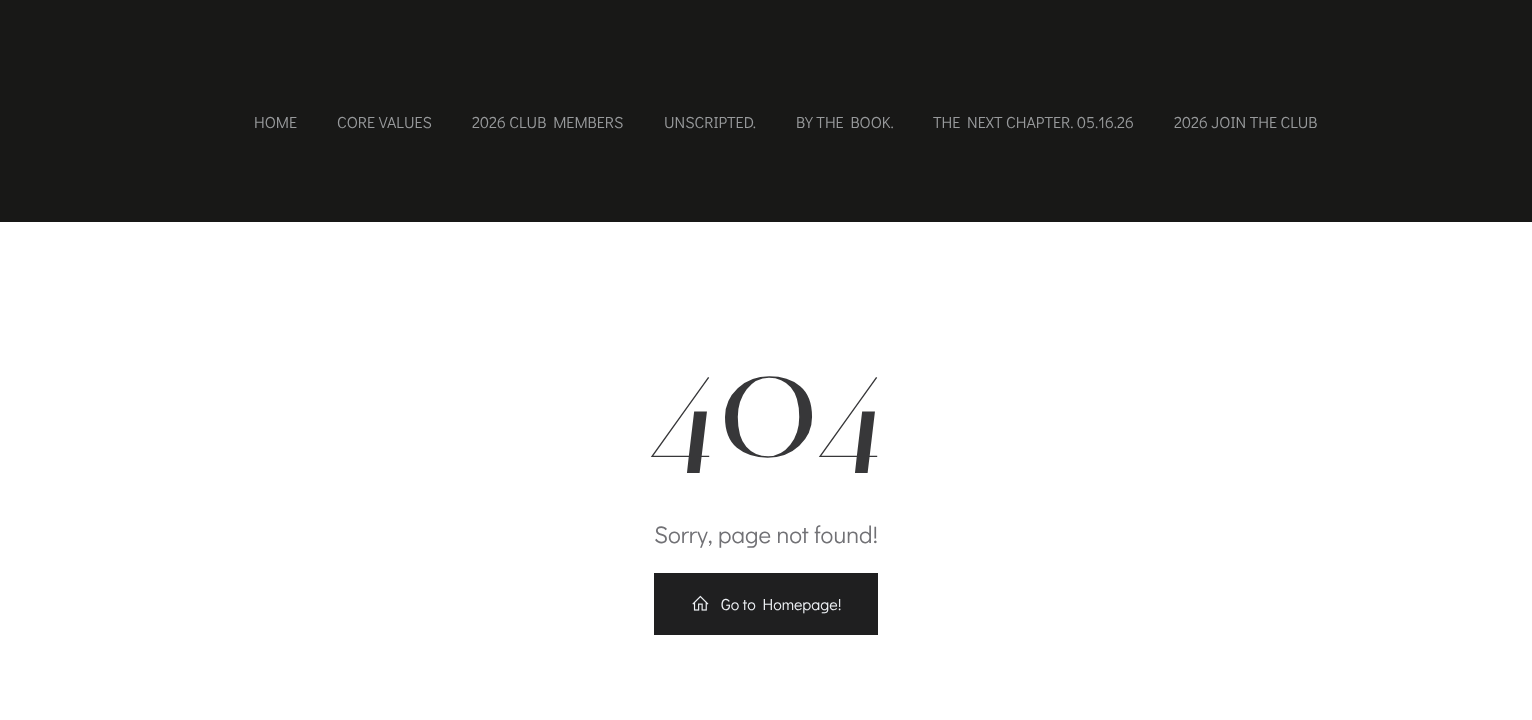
async function draw(canvas) {
	canvas.width = 1532;
	canvas.height = 720;
	const c = canvas.getContext('2d');
	c.miterLimit = 4;
	c.fontKerning = 'normal';
	async function loadImage(src) {
		const img = new Image();
		img.src = src;
		await img.decode();
		return img;
	}

	c.fillStyle = '#fff';
	c.fillRect(0, 0, 1532, 720);
	c.fillStyle = '#181817';
	c.fillRect(0, 0, 1532, 222);
	c.font = '16px Didact Gothic';
	c.fillStyle = '#989a9c';
	for (const [text, x, y] of [
		['HOME', 254, 128],
		['CORE VALUES', 337, 128],
		['2026 CLUB MEMBERS', 472, 128],
		['UNSCRIPTED.', 664, 128],
		['BY THE BOOK.', 796, 128],
		['THE NEXT CHAPTER. 05.16.26', 933, 128],
		['2026 JOIN THE CLUB', 1174, 128],
	]) {
		c.fillText(text, x, y);
	}
	c.font = '160px Italiana';
	c.fillStyle = '#373739';
	c.fillText('404', 646, 457);
	c.font = '24px Didact Gothic';
	c.fillStyle = '#717175';
	c.fillText('Sorry, page not found!', 654, 543);
	c.fillStyle = '#1f1f20';
	c.fillRect(654, 573, 224, 62);
	c.drawImage(await loadImage('img1.png'), 692, 595, 17, 16);
	c.font = '16px Didact Gothic';
	c.fillStyle = '#eef1f5';
	c.fillText('Go to Homepage!', 721, 610);
}

draw(document.querySelector('canvas'));
